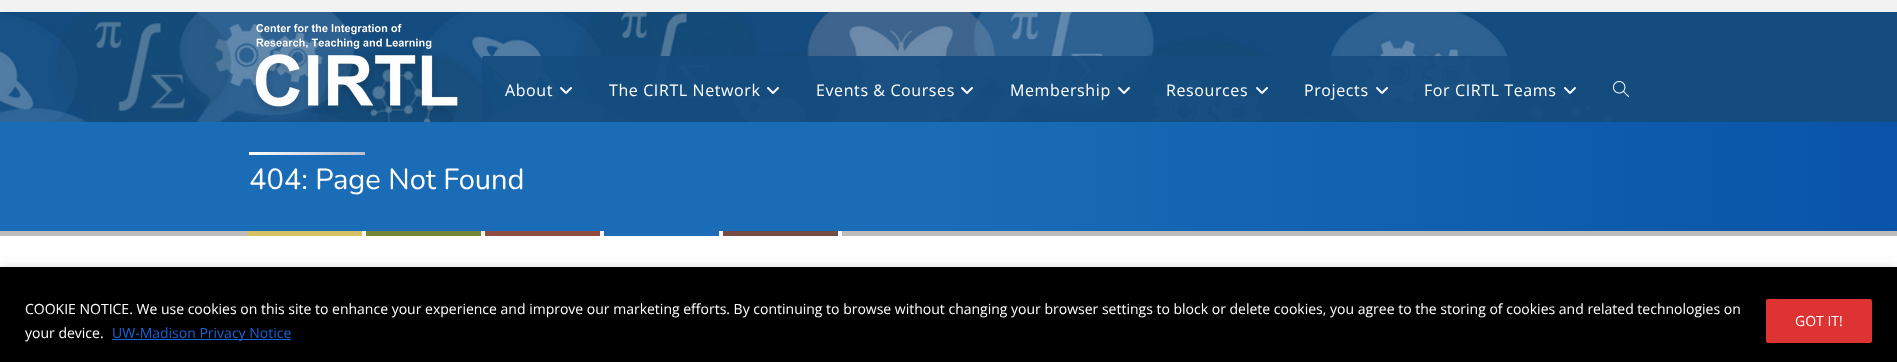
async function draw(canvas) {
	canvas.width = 1897;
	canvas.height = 362;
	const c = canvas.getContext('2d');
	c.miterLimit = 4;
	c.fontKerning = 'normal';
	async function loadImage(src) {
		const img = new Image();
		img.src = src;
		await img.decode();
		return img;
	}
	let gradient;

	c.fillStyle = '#fff';
	c.fillRect(0, 0, 1897, 362);
	c.fillStyle = '#f2f2f2';
	c.fillRect(0, 0, 1897, 12);
	c.fillStyle = '#144c7f';
	c.fillRect(1645, 12, 252, 110);
	c.drawImage(await loadImage('img1.png'), 0, 12, 1645, 110);
	c.drawImage(await loadImage('img2.png'), 252, 23, 208, 90);
	c.fillStyle = '#144c7fed';
	c.beginPath();
	c.roundRect(482, 56, 1167, 66, [2, 2, 0, 0]);
	c.fill();
	c.letterSpacing = '0.6px';
	c.font = '16px Open Sans';
	c.fillStyle = '#fff';
	c.fillText('About', 505, 96);
	c.drawImage(await loadImage('img3.png'), 560, 87, 12, 7);
	c.fillText('The CIRTL Network', 609, 96);
	c.drawImage(await loadImage('img4.png'), 767, 87, 12, 7);
	c.fillText('Events & Courses', 816, 96);
	c.drawImage(await loadImage('img5.png'), 961, 87, 12, 7);
	c.fillText('Membership', 1010, 96);
	c.drawImage(await loadImage('img6.png'), 1118, 87, 12, 7);
	c.fillText('Resources', 1166, 96);
	c.drawImage(await loadImage('img7.png'), 1256, 87, 12, 7);
	c.fillText('Projects', 1304, 96);
	c.drawImage(await loadImage('img8.png'), 1376, 87, 12, 7);
	c.fillText('For CIRTL Teams', 1424, 96);
	c.drawImage(await loadImage('img9.png'), 1564, 87, 12, 7);
	c.drawImage(await loadImage('img10.png'), 1613, 81, 16, 16);
	gradient = c.createLinearGradient(0, 177, 1897, 177);
	gradient.addColorStop(0, '#196cb5');
	gradient.addColorStop(0.5, '#196cb5');
	gradient.addColorStop(1, '#0954a9');
	c.fillStyle = gradient;
	c.fillRect(0, 122, 1897, 109);
	gradient = c.createLinearGradient(249, 154, 365, 154);
	gradient.addColorStop(0, '#fff');
	gradient.addColorStop(1, '#b9bfd3');
	c.fillStyle = gradient;
	c.fillRect(249, 152, 116, 3);
	c.letterSpacing = '0px';
	c.font = '200 29px Nunito';
	c.fillStyle = '#fff';
	c.fillText('404: Page Not Found', 249, 189);
	c.fillStyle = '#bcbcbc';
	c.fillRect(0, 231, 1897, 5);
	c.drawImage(await loadImage('img11.png'), 247, 231, 595, 5);
	c.fillStyle = '#acabab4d';
	c.filter = 'blur(5px)';
	c.beginPath();
	c.rect(0, 266, 1897, 95);
	c.fill();
	c.filter = 'none';
	c.fillStyle = '#000';
	c.fillRect(0, 267, 1897, 95);
	c.font = '14px Open Sans';
	c.fillStyle = '#fff';
	c.fillText('COOKIE NOTICE. We use cookies on this site to enhance your experience and improve our marketing efforts. By continuing to browse without changing your browser settings to block or delete cookies, you agree to the storing of cookies and related technologies on', 25, 314);
	c.fillText('your device.', 25, 338);
	c.fillStyle = '#1863dc';
	c.fillRect(112, 339, 179, 1);
	c.fillText('UW-Madison Privacy Notice', 112, 338);
	c.fillStyle = '#d33';
	c.beginPath();
	c.roundRect(1767, 300, 104, 42, 1);
	c.fill();
	c.strokeStyle = '#d33';
	c.lineWidth = 2;
	c.stroke();
	c.fillStyle = '#fff';
	c.fillText('GOT IT!', 1795, 326);
}

draw(document.querySelector('canvas'));
